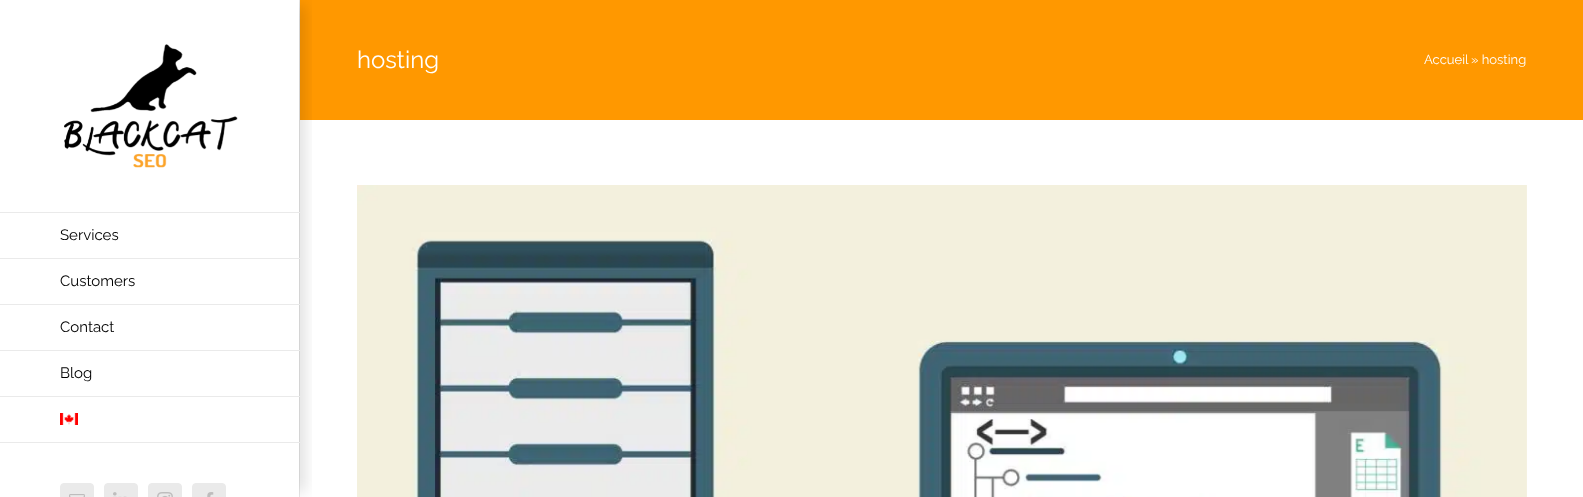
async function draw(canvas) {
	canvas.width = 1583;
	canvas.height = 497;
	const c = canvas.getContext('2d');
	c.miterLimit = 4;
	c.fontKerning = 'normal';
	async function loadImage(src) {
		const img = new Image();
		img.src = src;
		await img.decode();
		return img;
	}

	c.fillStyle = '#fff';
	c.fillRect(0, 0, 1583, 497);
	c.fillStyle = '#ff9800';
	c.fillRect(300, 0, 1283, 120);
	c.font = '24px Raleway';
	c.fillStyle = '#fff';
	c.fillText('hosting', 357, 68);
	c.font = '13px Raleway';
	c.fillText('Accueil', 1424, 64);
	c.fillText('» hosting', 1471, 64);
	c.drawImage(await loadImage('img1.png'), 64, 44, 174, 124);
	c.fillStyle = '#eaeaea';
	c.fillRect(299, 0, 1, 497);
	c.save();
	c.beginPath();
	c.rect(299, 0, 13, 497);
	c.clip();
	c.fillStyle = '#00000024';
	c.filter = 'blur(7.5px)';
	c.beginPath();
	c.rect(289, 5, 15, 487);
	c.fill();
	c.filter = 'none';
	c.restore();
	c.fillRect(0, 212, 300, 1);
	c.fillRect(0, 258, 300, 1);
	c.font = '15px Raleway';
	c.fillStyle = '#000';
	c.fillText('Services', 60, 240);
	c.fillStyle = '#eaeaea';
	c.fillRect(0, 304, 300, 1);
	c.fillStyle = '#000';
	c.fillText('Customers', 60, 286);
	c.fillStyle = '#eaeaea';
	c.fillRect(0, 350, 300, 1);
	c.fillStyle = '#000';
	c.fillText('Contact', 60, 332);
	c.fillStyle = '#eaeaea';
	c.fillRect(0, 396, 300, 1);
	c.fillStyle = '#000';
	c.fillText('Blog', 60, 378);
	c.fillStyle = '#eaeaea';
	c.fillRect(0, 442, 300, 1);
	c.drawImage(await loadImage('img2.png'), 60, 413, 18, 12);
	c.beginPath();
	c.roundRect(60.5, 483.5, 33, 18, 3.5);
	c.fill();
	c.strokeStyle = '#eaeaea';
	c.stroke();
	c.drawImage(await loadImage('img3.png'), 69, 494, 16, 3);
	c.beginPath();
	c.roundRect(104.5, 483.5, 33, 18, 3.5);
	c.fill();
	c.stroke();
	c.drawImage(await loadImage('img4.png'), 113, 492, 14, 5);
	c.beginPath();
	c.roundRect(148.5, 483.5, 33, 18, 3.5);
	c.fill();
	c.stroke();
	c.drawImage(await loadImage('img5.png'), 157, 492, 16, 5);
	c.beginPath();
	c.roundRect(192.5, 483.5, 33, 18, 3.5);
	c.fill();
	c.stroke();
	c.drawImage(await loadImage('img6.png'), 207, 492, 7, 5);
	c.drawImage(await loadImage('img7.png'), 357, 185, 1170, 312);
}

draw(document.querySelector('canvas'));
